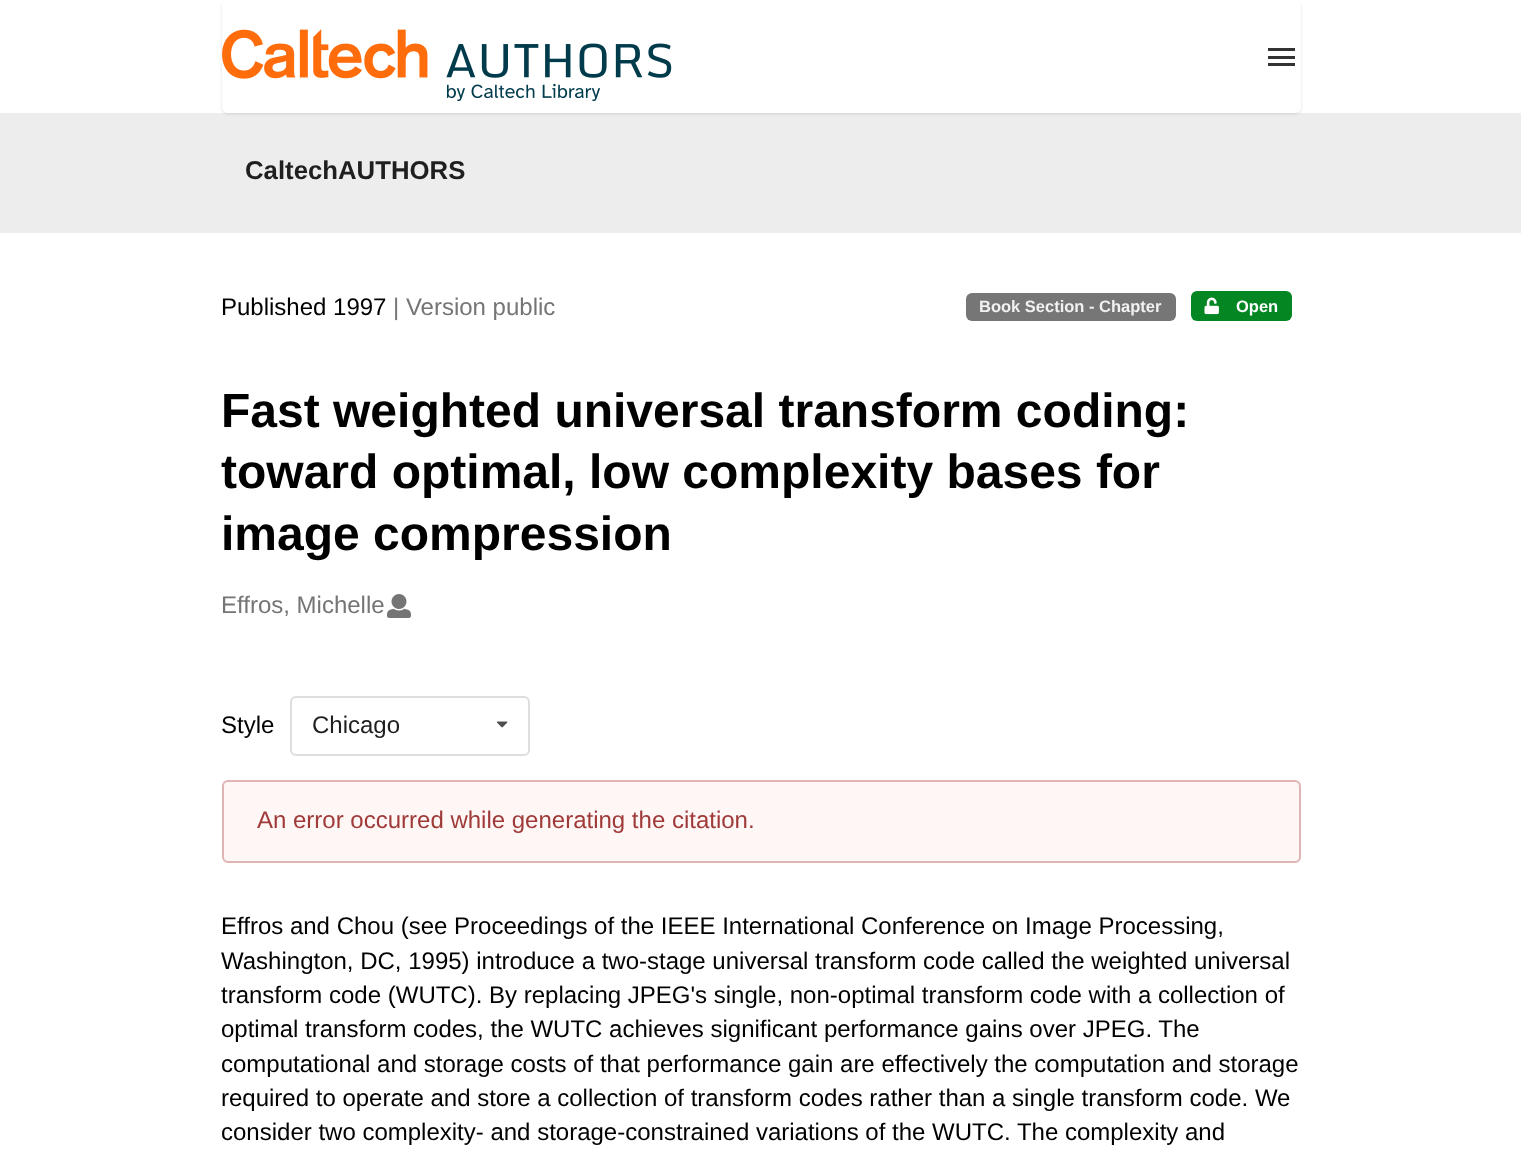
async function draw(canvas) {
	canvas.width = 1521;
	canvas.height = 1159;
	const c = canvas.getContext('2d');
	c.miterLimit = 4;
	c.fontKerning = 'normal';
	async function loadImage(src) {
		const img = new Image();
		img.src = src;
		await img.decode();
		return img;
	}

	c.fillStyle = '#fff';
	c.fillRect(0, 0, 1521, 1159);
	c.fillStyle = '#ededed';
	c.fillRect(0, 113, 1521, 120);
	c.save();
	c.beginPath();
	c.moveTo(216, 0);
	c.lineTo(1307, 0);
	c.lineTo(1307, 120);
	c.lineTo(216, 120);
	c.closePath();
	c.moveTo(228, 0);
	c.lineTo(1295, 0);
	c.bezierCurveTo(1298.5, 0, 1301, 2.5, 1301, 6);
	c.lineTo(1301, 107);
	c.bezierCurveTo(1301, 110.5, 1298.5, 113, 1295, 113);
	c.lineTo(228, 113);
	c.bezierCurveTo(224.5, 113, 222, 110.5, 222, 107);
	c.lineTo(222, 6);
	c.bezierCurveTo(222, 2.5, 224.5, 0, 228, 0);
	c.closePath();
	c.clip('evenodd');
	c.fillStyle = '#22242626';
	c.filter = 'blur(1.5px)';
	c.beginPath();
	c.roundRect(222, 2, 1079, 112, 6);
	c.fill();
	c.filter = 'none';
	c.restore();
	c.drawImage(await loadImage('img1.png'), 222, 29, 450, 72);
	for (const [x, y, w, h, color] of [
		[1268, 56, 27, 3, '#333'],
		[1268, 48, 27, 3, '#333'],
		[1268, 63, 27, 3, '#333'],
	]) {
		c.fillStyle = color;
		c.fillRect(x, y, w, h);
	}
	c.font = 'bold 25.75px Liberation Sans';
	c.fillStyle = '#1f1f1f';
	c.fillText('CaltechAUTHORS', 245, 179);
	c.font = '24px Liberation Sans';
	c.fillStyle = '#000';
	c.fillText('Published 1997', 221, 315);
	c.fillStyle = '#757575';
	c.fillText('| Version public', 393, 315);
	c.fillStyle = '#767676';
	c.beginPath();
	c.roundRect(966, 293, 210, 28, 6);
	c.fill();
	c.font = 'bold 16.5px Liberation Sans';
	c.fillStyle = '#f1f1f1';
	c.fillText('Book Section - Chapter', 979, 312);
	c.fillStyle = '#048622';
	c.beginPath();
	c.roundRect(1191, 291, 101, 30, 6);
	c.fill();
	c.drawImage(await loadImage('img2.png'), 1204, 297, 15, 18);
	c.fillStyle = '#fff';
	c.fillText('Open', 1236, 312);
	c.font = 'bold 48px Liberation Sans';
	c.fillStyle = '#000';
	for (const [text, x, y] of [
		['Fast weighted universal transform coding:', 221, 427],
		['toward optimal, low complexity bases for', 221, 488],
		['image compression', 221, 550],
	]) {
		c.fillText(text, x, y);
	}
	c.font = '24px Liberation Sans';
	c.fillStyle = '#757575';
	c.fillText('Effros, Michelle', 221, 613);
	c.drawImage(await loadImage('img3.png'), 387, 594, 24, 24);
	c.fillStyle = '#000';
	c.fillText('Style', 221, 733);
	c.beginPath();
	c.roundRect(291, 697, 238, 58, 5);
	c.strokeStyle = '#dedede';
	c.lineWidth = 2;
	c.stroke();
	c.fillStyle = '#1f1f1f';
	c.fillText('Chicago', 312, 733);
	c.drawImage(await loadImage('img4.png'), 496, 721, 12, 7);
	c.fillStyle = '#fff6f6';
	c.beginPath();
	c.roundRect(223, 781, 1077, 81, 5);
	c.fill();
	c.strokeStyle = '#e0b4b4';
	c.stroke();
	c.fillStyle = '#9f3a38';
	c.fillText('An error occurred while generating the citation.', 257, 828);
	c.fillStyle = '#000';
	for (const [text, x, y] of [
		['Effros and Chou (see Proceedings of the IEEE International Conference on Image Processing,', 221, 934],
		['Washington, DC, 1995) introduce a two-stage universal transform code called the weighted universal', 221, 969],
		['transform code (WUTC). By replacing JPEG\'s single, non-optimal transform code with a collection of', 221, 1003],
		['optimal transform codes, the WUTC achieves significant performance gains over JPEG. The', 221, 1037],
		['computational and storage costs of that performance gain are effectively the computation and storage', 221, 1072],
		['required to operate and store a collection of transform codes rather than a single transform code. We', 221, 1106],
		['consider two complexity- and storage-constrained variations of the WUTC. The complexity and', 221, 1140],
	]) {
		c.fillText(text, x, y);
	}
}

draw(document.querySelector('canvas'));
